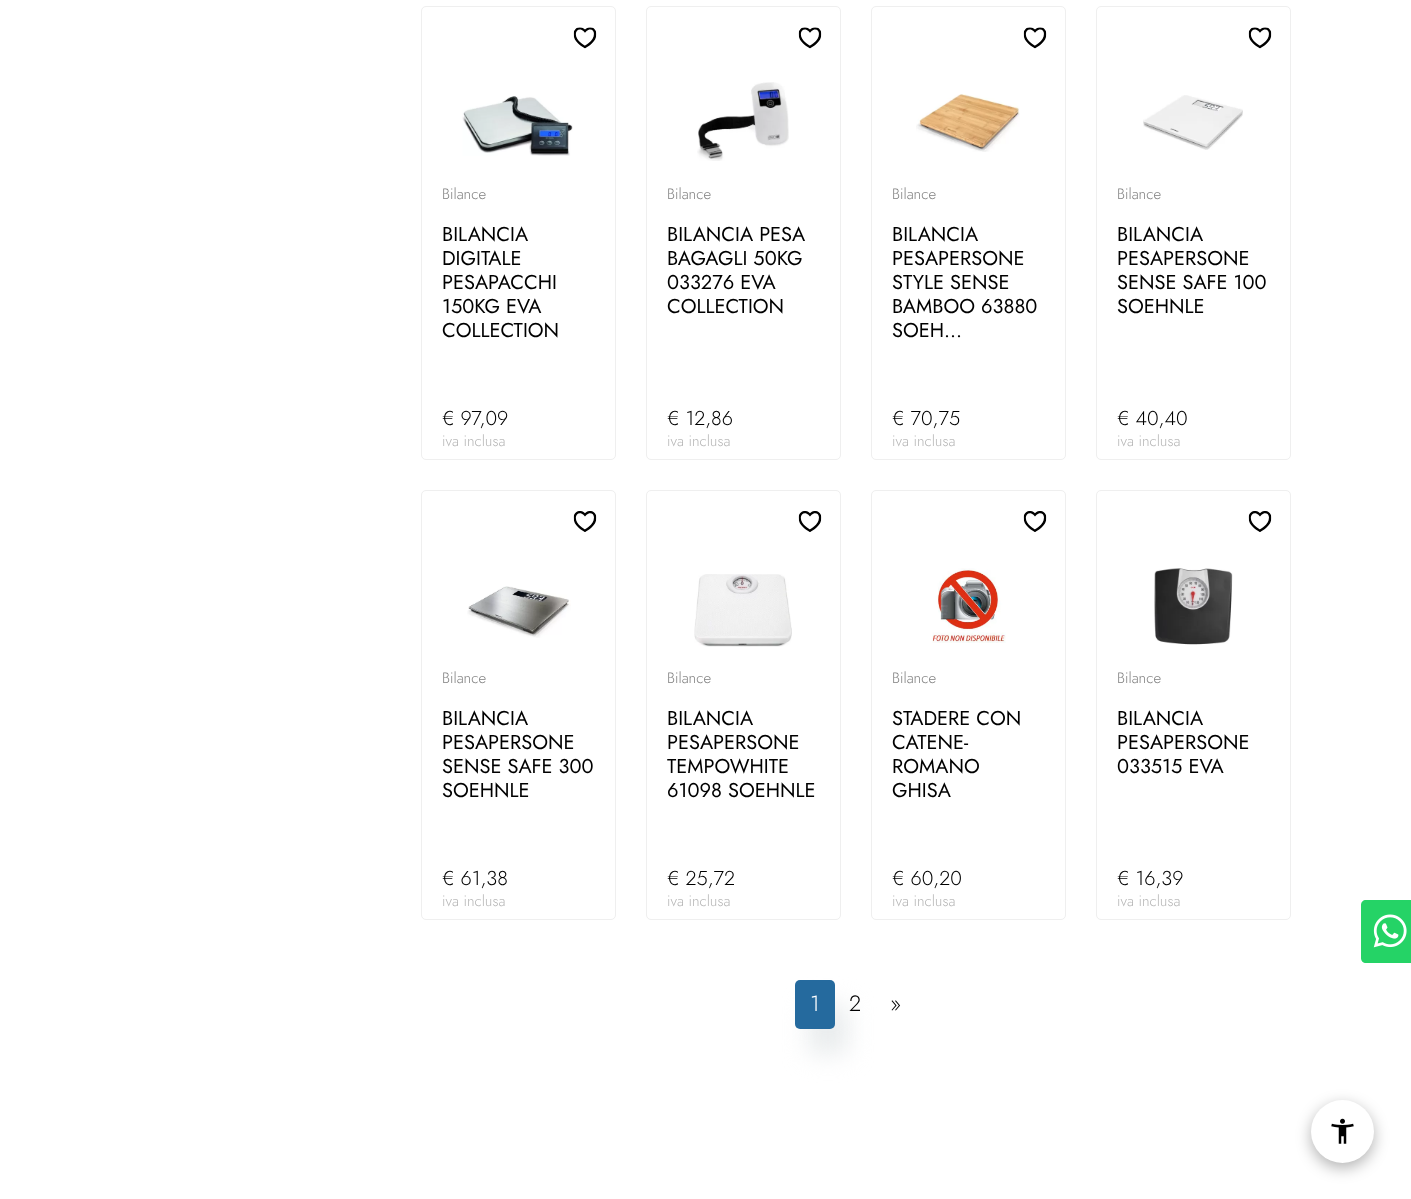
async function draw(canvas) {
	canvas.width = 1411;
	canvas.height = 1199;
	const c = canvas.getContext('2d');
	c.miterLimit = 4;
	c.fontKerning = 'normal';
	async function loadImage(src) {
		const img = new Image();
		img.src = src;
		await img.decode();
		return img;
	}

	c.fillStyle = '#fff';
	c.fillRect(0, 0, 1411, 1199);
	c.beginPath();
	c.roundRect(421.5, 6.5, 194, 453, 4.5);
	c.strokeStyle = '#efefef';
	c.stroke();
	c.drawImage(await loadImage('img1.png'), 573, 27, 24, 22);
	c.drawImage(await loadImage('img2.png'), 462, 96, 111, 60);
	c.font = '300 15px Jost';
	c.fillStyle = '#808080';
	c.fillText('Bilance', 442, 199);
	c.font = '20px Jost';
	c.fillStyle = '#000';
	for (const [text, x, y] of [
		['BILANCIA', 442, 241],
		['DIGITALE', 442, 265],
		['PESAPACCHI', 442, 289],
		['150KG EVA', 442, 313],
		['COLLECTION', 442, 337],
	]) {
		c.fillText(text, x, y);
	}
	c.font = '300 20px Jost';
	c.fillText('€ 97,09', 442, 425);
	c.font = '300 15px Jost';
	c.fillStyle = '#b6b6b6';
	c.fillText('iva inclusa', 442, 446);
	c.beginPath();
	c.roundRect(646.5, 6.5, 194, 453, 4.5);
	c.stroke();
	c.drawImage(await loadImage('img1.png'), 798, 27, 24, 22);
	c.drawImage(await loadImage('img3.png'), 697, 82, 92, 79);
	c.fillStyle = '#808080';
	c.fillText('Bilance', 667, 199);
	c.font = '20px Jost';
	c.fillStyle = '#000';
	for (const [text, x, y] of [
		['BILANCIA PESA', 667, 241],
		['BAGAGLI 50KG', 667, 265],
		['033276 EVA', 667, 289],
		['COLLECTION', 667, 313],
	]) {
		c.fillText(text, x, y);
	}
	c.font = '300 20px Jost';
	c.fillText('€ 12,86', 667, 425);
	c.font = '300 15px Jost';
	c.fillStyle = '#b6b6b6';
	c.fillText('iva inclusa', 667, 446);
	c.beginPath();
	c.roundRect(871.5, 6.5, 194, 453, 4.5);
	c.stroke();
	c.drawImage(await loadImage('img1.png'), 1023, 27, 24, 22);
	c.drawImage(await loadImage('img4.png'), 916, 94, 104, 58);
	c.fillStyle = '#808080';
	c.fillText('Bilance', 892, 199);
	c.font = '20px Jost';
	c.fillStyle = '#000';
	for (const [text, x, y] of [
		['BILANCIA', 892, 241],
		['PESAPERSONE', 892, 265],
		['STYLE SENSE', 892, 289],
		['BAMBOO 63880', 892, 313],
		['SOEH...', 892, 337],
	]) {
		c.fillText(text, x, y);
	}
	c.font = '300 20px Jost';
	c.fillText('€ 70,75', 892, 425);
	c.font = '300 15px Jost';
	c.fillStyle = '#b6b6b6';
	c.fillText('iva inclusa', 892, 446);
	c.beginPath();
	c.roundRect(1096.5, 6.5, 194, 453, 4.5);
	c.stroke();
	c.drawImage(await loadImage('img5.png'), 1248, 27, 24, 22);
	c.drawImage(await loadImage('img6.png'), 1143, 95, 100, 55);
	c.fillStyle = '#808080';
	c.fillText('Bilance', 1117, 199);
	c.font = '20px Jost';
	c.fillStyle = '#000';
	for (const [text, x, y] of [
		['BILANCIA', 1117, 241],
		['PESAPERSONE', 1117, 265],
		['SENSE SAFE 100', 1117, 289],
		['SOEHNLE', 1117, 313],
	]) {
		c.fillText(text, x, y);
	}
	c.font = '300 20px Jost';
	c.fillText('€ 40,40', 1117, 425);
	c.font = '300 15px Jost';
	c.fillStyle = '#b6b6b6';
	c.fillText('iva inclusa', 1117, 446);
	c.beginPath();
	c.roundRect(421.5, 490.5, 194, 429, 4.5);
	c.stroke();
	c.drawImage(await loadImage('img7.png'), 573, 511, 24, 21);
	c.drawImage(await loadImage('img8.png'), 467, 586, 104, 52);
	c.fillStyle = '#808080';
	c.fillText('Bilance', 442, 683);
	c.font = '20px Jost';
	c.fillStyle = '#000';
	for (const [text, x, y] of [
		['BILANCIA', 442, 725],
		['PESAPERSONE', 442, 749],
		['SENSE SAFE 300', 442, 773],
		['SOEHNLE', 442, 797],
	]) {
		c.fillText(text, x, y);
	}
	c.font = '300 20px Jost';
	c.fillText('€ 61,38', 442, 885);
	c.font = '300 15px Jost';
	c.fillStyle = '#b6b6b6';
	c.fillText('iva inclusa', 442, 906);
	c.beginPath();
	c.roundRect(646.5, 490.5, 194, 429, 4.5);
	c.stroke();
	c.drawImage(await loadImage('img7.png'), 798, 511, 24, 21);
	c.drawImage(await loadImage('img9.png'), 694, 574, 98, 73);
	c.fillStyle = '#808080';
	c.fillText('Bilance', 667, 683);
	c.font = '20px Jost';
	c.fillStyle = '#000';
	for (const [text, x, y] of [
		['BILANCIA', 667, 725],
		['PESAPERSONE', 667, 749],
		['TEMPOWHITE', 667, 773],
		['61098 SOEHNLE', 667, 797],
	]) {
		c.fillText(text, x, y);
	}
	c.font = '300 20px Jost';
	c.fillText('€ 25,72', 667, 885);
	c.font = '300 15px Jost';
	c.fillStyle = '#b6b6b6';
	c.fillText('iva inclusa', 667, 906);
	c.beginPath();
	c.roundRect(871.5, 490.5, 194, 429, 4.5);
	c.stroke();
	c.drawImage(await loadImage('img7.png'), 1023, 511, 24, 21);
	c.drawImage(await loadImage('img10.png'), 932, 568, 74, 75);
	c.fillStyle = '#808080';
	c.fillText('Bilance', 892, 683);
	c.font = '20px Jost';
	c.fillStyle = '#000';
	for (const [text, x, y] of [
		['STADERE CON', 892, 725],
		['CATENE-', 892, 749],
		['ROMANO', 892, 773],
		['GHISA', 892, 797],
	]) {
		c.fillText(text, x, y);
	}
	c.font = '300 20px Jost';
	c.fillText('€ 60,20', 892, 885);
	c.font = '300 15px Jost';
	c.fillStyle = '#b6b6b6';
	c.fillText('iva inclusa', 892, 906);
	c.beginPath();
	c.roundRect(1096.5, 490.5, 194, 429, 4.5);
	c.stroke();
	c.drawImage(await loadImage('img11.png'), 1248, 511, 24, 21);
	c.drawImage(await loadImage('img12.png'), 1154, 568, 79, 77);
	c.fillStyle = '#808080';
	c.fillText('Bilance', 1117, 683);
	c.font = '20px Jost';
	c.fillStyle = '#000';
	for (const [text, x, y] of [
		['BILANCIA', 1117, 725],
		['PESAPERSONE', 1117, 749],
		['033515 EVA', 1117, 773],
	]) {
		c.fillText(text, x, y);
	}
	c.font = '300 20px Jost';
	c.fillText('€ 16,39', 1117, 885);
	c.font = '300 15px Jost';
	c.fillStyle = '#b6b6b6';
	c.fillText('iva inclusa', 1117, 906);
	c.fillStyle = '#e9eced';
	c.filter = 'blur(12.5px)';
	c.beginPath();
	c.roundRect(808, 1005, 40, 49, 5);
	c.fill();
	c.filter = 'none';
	c.fillStyle = '#256a9e';
	c.beginPath();
	c.roundRect(795, 980, 40, 49, 5);
	c.fill();
	c.font = '300 22px Jost';
	c.fillStyle = '#fff';
	c.fillText('1', 810, 1011);
	c.fillStyle = '#000';
	c.fillText('2', 849, 1011);
	c.fillText('»', 890, 1011);
	c.fillStyle = '#25d366';
	c.beginPath();
	c.moveTo(1366, 900);
	c.lineTo(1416, 900);
	c.lineTo(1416, 963);
	c.lineTo(1366, 963);
	c.bezierCurveTo(1363, 963, 1361, 961, 1361, 958);
	c.lineTo(1361, 905);
	c.bezierCurveTo(1361, 902, 1363, 900, 1366, 900);
	c.closePath();
	c.fill();
	c.drawImage(await loadImage('img13.png'), 1373, 914, 34, 34);
	c.fillStyle = '#0000004d';
	c.filter = 'blur(7.5px)';
	c.beginPath();
	c.roundRect(1311, 1105, 63, 63, 31.5);
	c.fill();
	c.filter = 'none';
	c.fillStyle = '#fff';
	c.beginPath();
	c.arc(1342.5, 1131.5, 31.5, 0, 2 * Math.PI);
	c.fill();
	c.drawImage(await loadImage('img14.png'), 1331, 1118, 23, 26);
}

draw(document.querySelector('canvas'));
